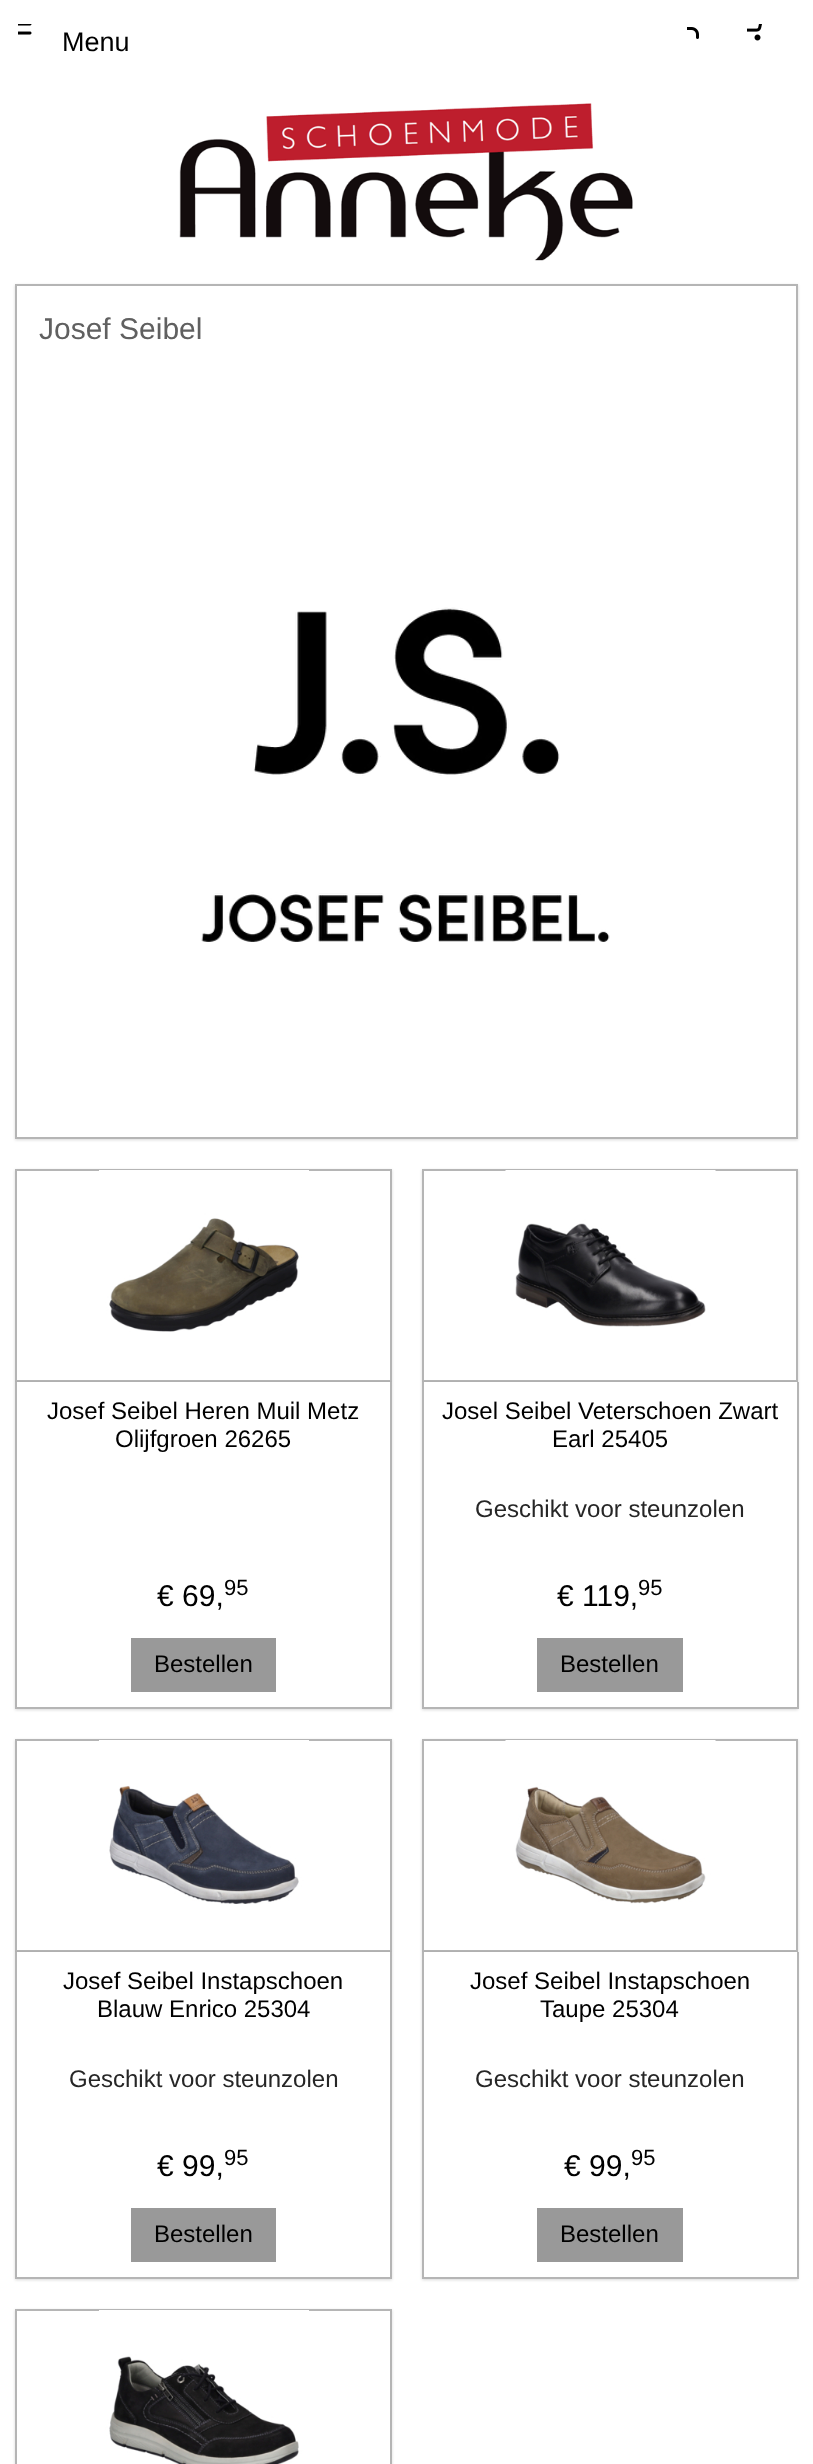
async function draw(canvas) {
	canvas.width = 813;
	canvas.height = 2464;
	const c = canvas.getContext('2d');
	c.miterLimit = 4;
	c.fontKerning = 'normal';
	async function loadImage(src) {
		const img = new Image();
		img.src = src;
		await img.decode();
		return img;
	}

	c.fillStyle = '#fff';
	c.fillRect(0, 0, 813, 2464);
	c.drawImage(await loadImage('img1.png'), 18, 24, 14, 11);
	c.font = '27px Liberation Sans';
	c.fillStyle = '#000';
	c.fillText('Menu', 62, 51);
	c.drawImage(await loadImage('img2.png'), 687, 27, 12, 12);
	c.drawImage(await loadImage('img3.png'), 747, 24, 15, 17);
	c.drawImage(await loadImage('img4.png'), 179, 103, 454, 158);
	c.fillStyle = '#00000026';
	c.filter = 'blur(1.5px)';
	c.beginPath();
	c.rect(15, 285, 783, 855);
	c.fill();
	c.filter = 'none';
	c.fillStyle = '#fff';
	c.beginPath();
	c.rect(16, 285, 781, 853);
	c.fill();
	c.strokeStyle = '#b5b5b5';
	c.lineWidth = 2;
	c.stroke();
	c.font = '30px Liberation Sans';
	c.fillStyle = '#606060';
	c.fillText('Josef Seibel', 39, 339);
	c.drawImage(await loadImage('img5.png'), 201, 607, 409, 335);
	c.fillStyle = '#00000026';
	c.filter = 'blur(1.5px)';
	c.beginPath();
	c.rect(15, 1170, 377, 213);
	c.fill();
	c.filter = 'none';
	c.fillStyle = '#fff';
	c.beginPath();
	c.rect(16, 1170, 375, 211);
	c.fill();
	c.stroke();
	c.drawImage(await loadImage('img6.png'), 99, 1170, 210, 162);
	c.fillStyle = '#00000026';
	c.filter = 'blur(1.5px)';
	c.beginPath();
	c.rect(15, 1383, 377, 327);
	c.fill();
	c.filter = 'none';
	for (const [x, y, w, h, color] of [
		[17, 1382, 373, 325, '#fff'],
		[390, 1382, 2, 327, '#b5b5b5'],
		[15, 1707, 377, 2, '#b5b5b5'],
		[15, 1382, 2, 327, '#b5b5b5'],
	]) {
		c.fillStyle = color;
		c.fillRect(x, y, w, h);
	}
	c.font = '24px Liberation Sans';
	c.fillStyle = '#000';
	c.fillText('Josef Seibel Heren Muil Metz', 47, 1419);
	c.fillText('Olijfgroen 26265', 115, 1447);
	c.font = '30px Liberation Sans';
	c.fillText('€ 69,', 157, 1606);
	c.font = '22px Liberation Sans';
	c.fillText('95', 224, 1595);
	c.fillStyle = '#999';
	c.fillRect(131, 1638, 145, 54);
	c.font = '24px Liberation Sans';
	c.fillStyle = '#000';
	c.fillText('Bestellen', 154, 1672);
	c.fillStyle = '#00000026';
	c.filter = 'blur(1.5px)';
	c.beginPath();
	c.rect(422, 1170, 376, 213);
	c.fill();
	c.filter = 'none';
	c.fillStyle = '#fff';
	c.beginPath();
	c.rect(423, 1170, 374, 211);
	c.fill();
	c.stroke();
	c.drawImage(await loadImage('img7.png'), 505, 1170, 211, 157);
	c.fillStyle = '#00000026';
	c.filter = 'blur(1.5px)';
	c.beginPath();
	c.rect(422, 1383, 376, 327);
	c.fill();
	c.filter = 'none';
	for (const [x, y, w, h, color] of [
		[424, 1382, 373, 325, '#fff'],
		[797, 1382, 2, 327, '#b5b5b5'],
		[422, 1707, 376, 2, '#b5b5b5'],
		[422, 1382, 2, 327, '#b5b5b5'],
	]) {
		c.fillStyle = color;
		c.fillRect(x, y, w, h);
	}
	c.fillStyle = '#000';
	c.fillText('Josel Seibel Veterschoen Zwart', 442, 1419);
	c.fillText('Earl 25405', 552, 1447);
	c.fillStyle = '#262626';
	c.fillText('Geschikt voor steunzolen', 475, 1517);
	c.font = '30px Liberation Sans';
	c.fillStyle = '#000';
	c.fillText('€ 119,', 557, 1606);
	c.font = '22px Liberation Sans';
	c.fillText('95', 638, 1595);
	c.fillStyle = '#999';
	c.fillRect(537, 1638, 146, 54);
	c.font = '24px Liberation Sans';
	c.fillStyle = '#000';
	c.fillText('Bestellen', 560, 1672);
	c.fillStyle = '#00000026';
	c.filter = 'blur(1.5px)';
	c.beginPath();
	c.rect(15, 1740, 377, 213);
	c.fill();
	c.filter = 'none';
	c.fillStyle = '#fff';
	c.beginPath();
	c.rect(16, 1740, 375, 211);
	c.fill();
	c.stroke();
	c.drawImage(await loadImage('img8.png'), 99, 1740, 210, 164);
	c.fillStyle = '#00000026';
	c.filter = 'blur(1.5px)';
	c.beginPath();
	c.rect(15, 1953, 377, 327);
	c.fill();
	c.filter = 'none';
	for (const [x, y, w, h, color] of [
		[17, 1952, 373, 325, '#fff'],
		[390, 1952, 2, 327, '#b5b5b5'],
		[15, 2277, 377, 2, '#b5b5b5'],
		[15, 1952, 2, 327, '#b5b5b5'],
	]) {
		c.fillStyle = color;
		c.fillRect(x, y, w, h);
	}
	c.fillStyle = '#000';
	c.fillText('Josef Seibel Instapschoen', 63, 1989);
	c.fillText('Blauw Enrico 25304', 97, 2017);
	c.fillStyle = '#262626';
	c.fillText('Geschikt voor steunzolen', 69, 2087);
	c.font = '30px Liberation Sans';
	c.fillStyle = '#000';
	c.fillText('€ 99,', 157, 2176);
	c.font = '22px Liberation Sans';
	c.fillText('95', 224, 2165);
	c.fillStyle = '#999';
	c.fillRect(131, 2208, 145, 54);
	c.font = '24px Liberation Sans';
	c.fillStyle = '#000';
	c.fillText('Bestellen', 154, 2242);
	c.fillStyle = '#00000026';
	c.filter = 'blur(1.5px)';
	c.beginPath();
	c.rect(422, 1740, 376, 213);
	c.fill();
	c.filter = 'none';
	c.fillStyle = '#fff';
	c.beginPath();
	c.rect(423, 1740, 374, 211);
	c.fill();
	c.stroke();
	c.drawImage(await loadImage('img9.png'), 505, 1740, 211, 164);
	c.fillStyle = '#00000026';
	c.filter = 'blur(1.5px)';
	c.beginPath();
	c.rect(422, 1953, 376, 327);
	c.fill();
	c.filter = 'none';
	for (const [x, y, w, h, color] of [
		[424, 1952, 373, 325, '#fff'],
		[797, 1952, 2, 327, '#b5b5b5'],
		[422, 2277, 376, 2, '#b5b5b5'],
		[422, 1952, 2, 327, '#b5b5b5'],
	]) {
		c.fillStyle = color;
		c.fillRect(x, y, w, h);
	}
	c.fillStyle = '#000';
	c.fillText('Josef Seibel Instapschoen', 470, 1989);
	c.fillText('Taupe 25304', 540, 2017);
	c.fillStyle = '#262626';
	c.fillText('Geschikt voor steunzolen', 475, 2087);
	c.font = '30px Liberation Sans';
	c.fillStyle = '#000';
	c.fillText('€ 99,', 564, 2176);
	c.font = '22px Liberation Sans';
	c.fillText('95', 631, 2165);
	c.fillStyle = '#999';
	c.fillRect(537, 2208, 146, 54);
	c.font = '24px Liberation Sans';
	c.fillStyle = '#000';
	c.fillText('Bestellen', 560, 2242);
	c.fillStyle = '#00000026';
	c.filter = 'blur(1.5px)';
	c.beginPath();
	c.rect(15, 2310, 377, 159);
	c.fill();
	c.filter = 'none';
	c.fillStyle = '#fff';
	c.beginPath();
	c.rect(16, 2310, 375, 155);
	c.fill();
	c.stroke();
	c.drawImage(await loadImage('img10.png'), 99, 2310, 210, 154);
}

draw(document.querySelector('canvas'));
